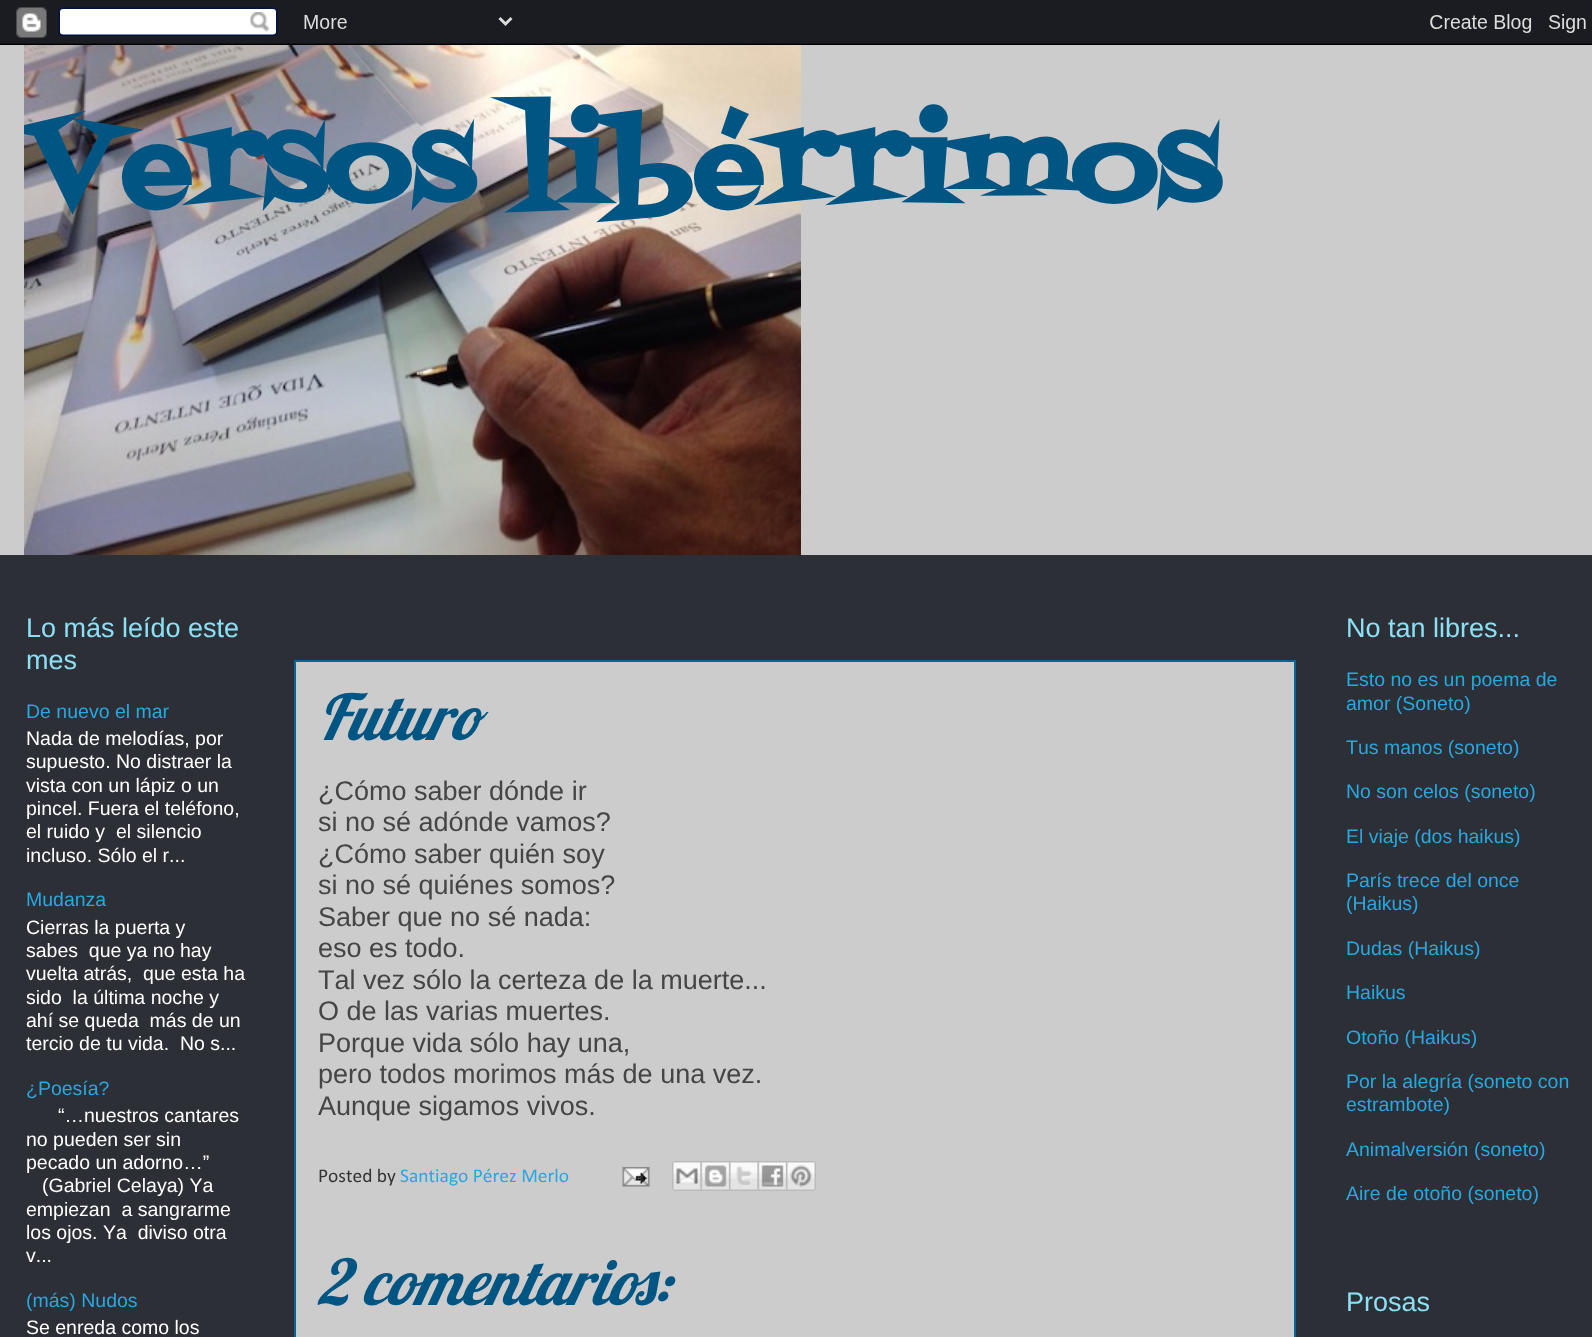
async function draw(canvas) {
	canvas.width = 1592;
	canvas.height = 1337;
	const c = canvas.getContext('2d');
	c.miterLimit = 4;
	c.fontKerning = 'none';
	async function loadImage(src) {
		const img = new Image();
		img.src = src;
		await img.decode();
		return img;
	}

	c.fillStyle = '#2d2f37';
	c.fillRect(0, 0, 1592, 1337);
	c.drawImage(await loadImage('img1.png'), 0, 0, 1592, 45);
	c.fillStyle = '#ccc';
	c.fillRect(0, 45, 1592, 510);
	c.drawImage(await loadImage('img2.png'), 24, 45, 777, 510);
	c.save();
	c.beginPath();
	c.rect(24, 45, 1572, 510);
	c.clip();
	c.font = 'bold 120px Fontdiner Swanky';
	c.fillStyle = '#005582';
	c.fillText('Versos', 24, 203);
	c.fillText('libérrimos', 512, 203);
	c.restore();
	c.font = '27px Liberation Sans';
	c.fillStyle = '#8ce0f5';
	c.fillText('Lo más leído este', 26, 637);
	c.fillText('mes', 26, 669);
	c.font = '19.5px Liberation Sans';
	c.fillStyle = '#28a8e1';
	c.fillText('De nuevo el mar', 26, 718);
	c.fillStyle = '#fff';
	for (const [text, x, y] of [
		['Nada de melodías, por', 26, 745],
		['supuesto. No distraer la', 26, 768],
		['vista con un lápiz o un', 26, 792],
		['pincel. Fuera el teléfono,', 26, 815],
		['el ruido y  el silencio', 26, 838],
		['incluso. Sólo el r...', 26, 862],
	]) {
		c.fillText(text, x, y);
	}
	c.fillStyle = '#28a8e1';
	c.fillText('Mudanza', 26, 906);
	c.fillStyle = '#fff';
	for (const [text, x, y] of [
		['Cierras la puerta y', 26, 934],
		['sabes  que ya no hay', 26, 957],
		['vuelta atrás,  que esta ha', 26, 980],
		['sido  la última noche y', 26, 1004],
		['ahí se queda  más de un', 26, 1027],
		['tercio de tu vida.  No s...', 26, 1050],
	]) {
		c.fillText(text, x, y);
	}
	c.fillStyle = '#28a8e1';
	c.fillText('¿Poesía?', 26, 1095);
	c.fillStyle = '#fff';
	for (const [text, x, y] of [
		['“…nuestros cantares', 58, 1122],
		['no pueden ser sin', 26, 1146],
		['pecado un adorno…”', 26, 1169],
		['(Gabriel Celaya) Ya', 42, 1192],
		['empiezan  a sangrarme', 26, 1216],
		['los ojos. Ya  diviso otra', 26, 1239],
		['v...', 26, 1262],
	]) {
		c.fillText(text, x, y);
	}
	c.fillStyle = '#28a8e1';
	c.fillText('(más) Nudos', 26, 1307);
	c.fillStyle = '#fff';
	c.fillText('Se enreda como los', 26, 1334);
	c.fillStyle = '#ccc';
	c.beginPath();
	c.rect(295, 661, 1000, 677);
	c.fill();
	c.strokeStyle = '#00669c';
	c.lineWidth = 2;
	c.stroke();
	c.font = 'italic 63px Lobster';
	c.fillStyle = '#005582';
	c.fillText('Futuro', 318, 740);
	c.font = '27px Liberation Sans';
	c.fillStyle = '#454545';
	for (const [text, x, y] of [
		['¿Cómo saber dónde ir', 318, 800],
		['si no sé adónde vamos?', 318, 831],
		['¿Cómo saber quién soy', 318, 863],
		['si no sé quiénes somos?', 318, 894],
		['Saber que no sé nada:', 318, 926],
		['eso es todo.', 318, 957],
		['Tal vez sólo la certeza de la muerte...', 318, 989],
		['O de las varias muertes.', 318, 1020],
		['Porque vida sólo hay una,', 318, 1052],
		['pero todos morimos más de una vez.', 318, 1083],
		['Aunque sigamos vivos.', 318, 1115],
	]) {
		c.fillText(text, x, y);
	}
	c.font = '19.5px Calibri';
	c.fillStyle = '#333';
	c.fillText('Posted by', 318, 1182);
	c.fillStyle = '#28a8e1';
	c.fillText('Santiago Pérez Merlo', 400, 1182);
	c.drawImage(await loadImage('img3.png'), 622, 1167, 28, 20);
	c.drawImage(await loadImage('img4.png'), 672, 1161, 29, 30);
	c.drawImage(await loadImage('img5.png'), 700, 1161, 29, 30);
	c.drawImage(await loadImage('img6.png'), 729, 1161, 29, 30);
	c.drawImage(await loadImage('img7.png'), 757, 1161, 29, 30);
	c.drawImage(await loadImage('img8.png'), 786, 1161, 30, 30);
	c.font = 'italic 63px Lobster';
	c.fillStyle = '#005582';
	c.fillText('2 comentarios:', 318, 1305);
	c.font = '27px Liberation Sans';
	c.fillStyle = '#8ce0f5';
	c.fillText('No tan libres...', 1346, 637);
	c.font = '19.5px Liberation Sans';
	c.fillStyle = '#28a8e1';
	for (const [text, x, y] of [
		['Esto no es un poema de', 1346, 686],
		['amor (Soneto)', 1346, 710],
		['Tus manos (soneto)', 1346, 754],
		['No son celos (soneto)', 1346, 798],
		['El viaje (dos haikus)', 1346, 843],
		['París trece del once', 1346, 887],
		['(Haikus)', 1346, 910],
		['Dudas (Haikus)', 1346, 955],
		['Haikus', 1346, 999],
		['Otoño (Haikus)', 1346, 1044],
		['Por la alegría (soneto con', 1346, 1088],
		['estrambote)', 1346, 1111],
		['Animalversión (soneto)', 1346, 1156],
		['Aire de otoño (soneto)', 1346, 1200],
	]) {
		c.fillText(text, x, y);
	}
	c.font = '27px Liberation Sans';
	c.fillStyle = '#8ce0f5';
	c.fillText('Prosas', 1346, 1311);
}

draw(document.querySelector('canvas'));
